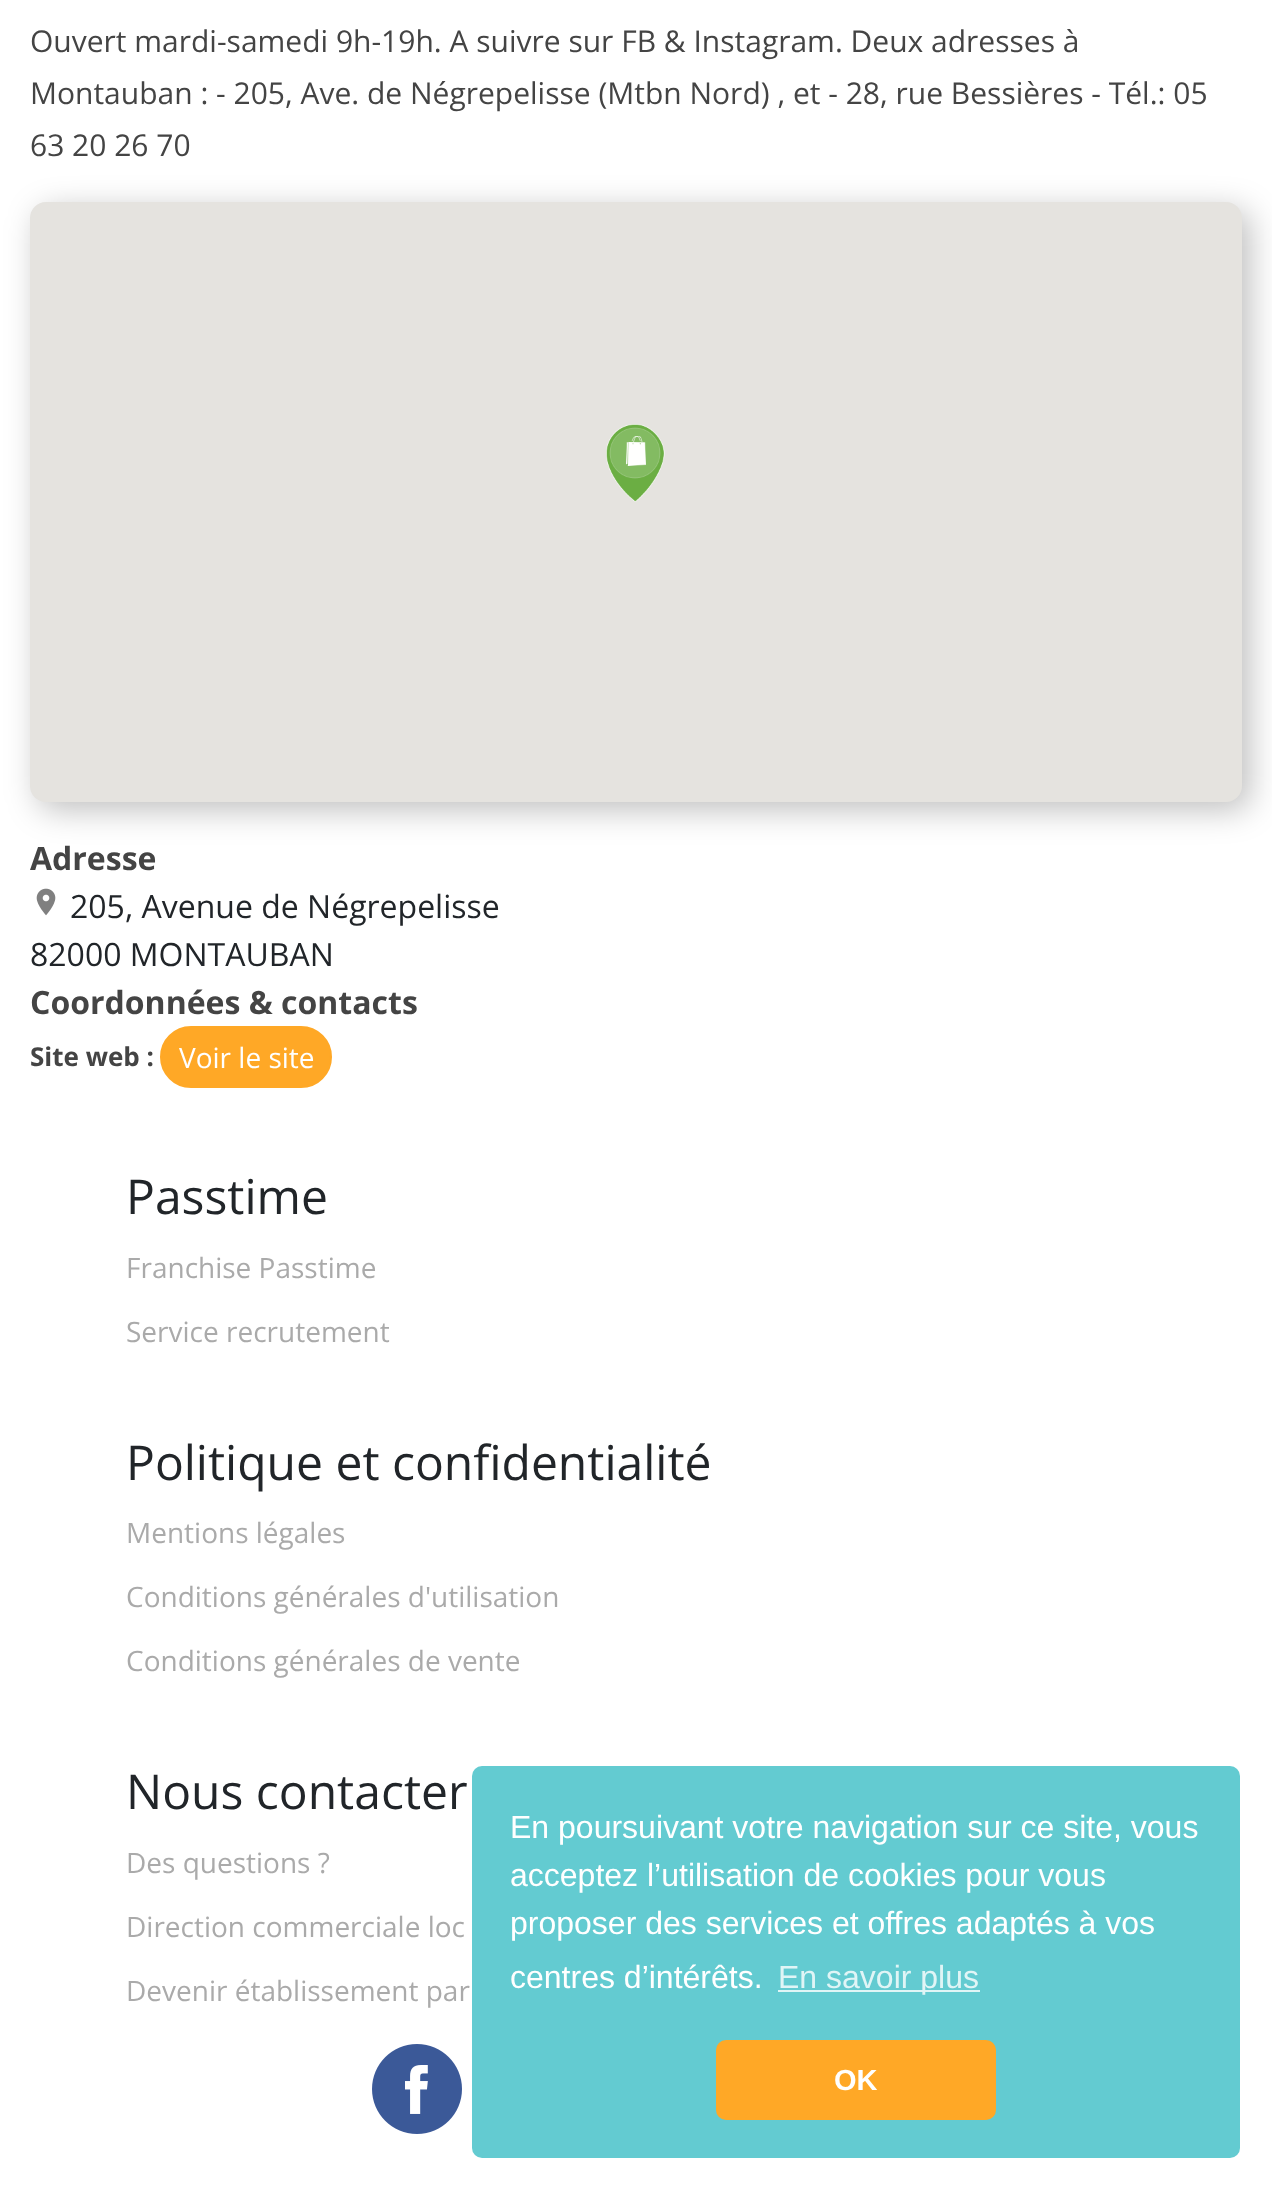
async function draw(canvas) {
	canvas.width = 1272;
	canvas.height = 2190;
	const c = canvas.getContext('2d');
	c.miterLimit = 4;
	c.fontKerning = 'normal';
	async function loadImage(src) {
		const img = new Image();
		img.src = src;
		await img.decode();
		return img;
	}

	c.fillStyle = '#fff';
	c.fillRect(0, 0, 1272, 2190);
	c.font = '30px Open Sans';
	c.fillStyle = '#444';
	for (const [text, x, y] of [
		['Ouvert mardi-samedi 9h-19h. A suivre sur FB & Instagram. Deux adresses à', 30, 52],
		['Montauban : - 205, Ave. de Négrepelisse (Mtbn Nord) , et - 28, rue Bessières - Tél.: 05', 30, 104],
		['63 20 26 70', 30, 156],
	]) {
		c.fillText(text, x, y);
	}
	c.fillStyle = '#00000040';
	c.filter = 'blur(16px)';
	c.beginPath();
	c.roundRect(38, 210, 1212, 600, 16);
	c.fill();
	c.filter = 'none';
	c.fillStyle = '#e5e3df';
	c.beginPath();
	c.roundRect(30, 202, 1212, 600, 16);
	c.fill();
	c.drawImage(await loadImage('img1.png'), 606, 424, 59, 78);
	c.font = 'bold 32px Open Sans';
	c.fillStyle = '#444';
	c.fillText('Adresse', 30, 870);
	c.drawImage(await loadImage('img2.png'), 36, 888, 20, 28);
	c.font = '32px Open Sans';
	c.fillStyle = '#212529';
	c.fillText('205, Avenue de Négrepelisse', 70, 918);
	c.fillText('82000 MONTAUBAN', 30, 966);
	c.font = 'bold 32px Open Sans';
	c.fillStyle = '#444';
	c.fillText('Coordonnées & contacts', 30, 1014);
	c.font = 'bold 26px Open Sans';
	c.fillText('Site web :', 30, 1066);
	c.fillStyle = '#ffa826';
	c.beginPath();
	c.roundRect(161, 1027, 170, 60, 30);
	c.fill();
	c.strokeStyle = '#ffa826';
	c.lineWidth = 2;
	c.stroke();
	c.font = '28px Open Sans';
	c.fillStyle = '#fff';
	c.fillText('Voir le site', 179, 1068);
	c.font = '48px Open Sans';
	c.fillStyle = '#212529';
	c.fillText('Passtime', 126, 1214);
	c.font = '28px Open Sans';
	c.fillStyle = '#aaa';
	c.fillText('Franchise Passtime', 126, 1278);
	c.fillText('Service recrutement', 126, 1342);
	c.font = '48px Open Sans';
	c.fillStyle = '#212529';
	c.fillText('Politique et confidentialité', 126, 1480);
	c.font = '28px Open Sans';
	c.fillStyle = '#aaa';
	for (const [text, x, y] of [
		['Mentions légales', 126, 1543],
		['Conditions générales d\'utilisation', 126, 1607],
		['Conditions générales de vente', 126, 1671],
	]) {
		c.fillText(text, x, y);
	}
	c.font = '48px Open Sans';
	c.fillStyle = '#212529';
	c.fillText('Nous contacter', 126, 1809);
	c.font = '28px Open Sans';
	c.fillStyle = '#aaa';
	for (const [text, x, y] of [
		['Des questions ?', 126, 1873],
		['Direction commerciale loc', 126, 1937],
		['Devenir établissement par', 126, 2001],
	]) {
		c.fillText(text, x, y);
	}
	c.drawImage(await loadImage('img3.png'), 372, 2044, 90, 90);
	c.fillStyle = '#63cbd1';
	c.beginPath();
	c.roundRect(472, 1766, 768, 392, 10);
	c.fill();
	c.font = '32px Liberation Sans';
	c.fillStyle = '#fff';
	for (const [text, x, y] of [
		['En poursuivant votre navigation sur ce site, vous', 510, 1838],
		['acceptez l’utilisation de cookies pour vous', 510, 1886],
		['proposer des services et offres adaptés à vos', 510, 1934],
		['centres d’intérêts.', 510, 1988],
	]) {
		c.fillText(text, x, y);
	}
	c.fillStyle = '#e0f5f6';
	c.fillRect(778, 1990, 202, 2);
	c.fillText('En savoir plus', 778, 1988);
	c.fillStyle = '#ffa826';
	c.beginPath();
	c.roundRect(716, 2040, 280, 80, 10);
	c.fill();
	c.font = 'bold 29px Liberation Sans';
	c.fillStyle = '#fff';
	c.fillText('OK', 834, 2090);
}

draw(document.querySelector('canvas'));
